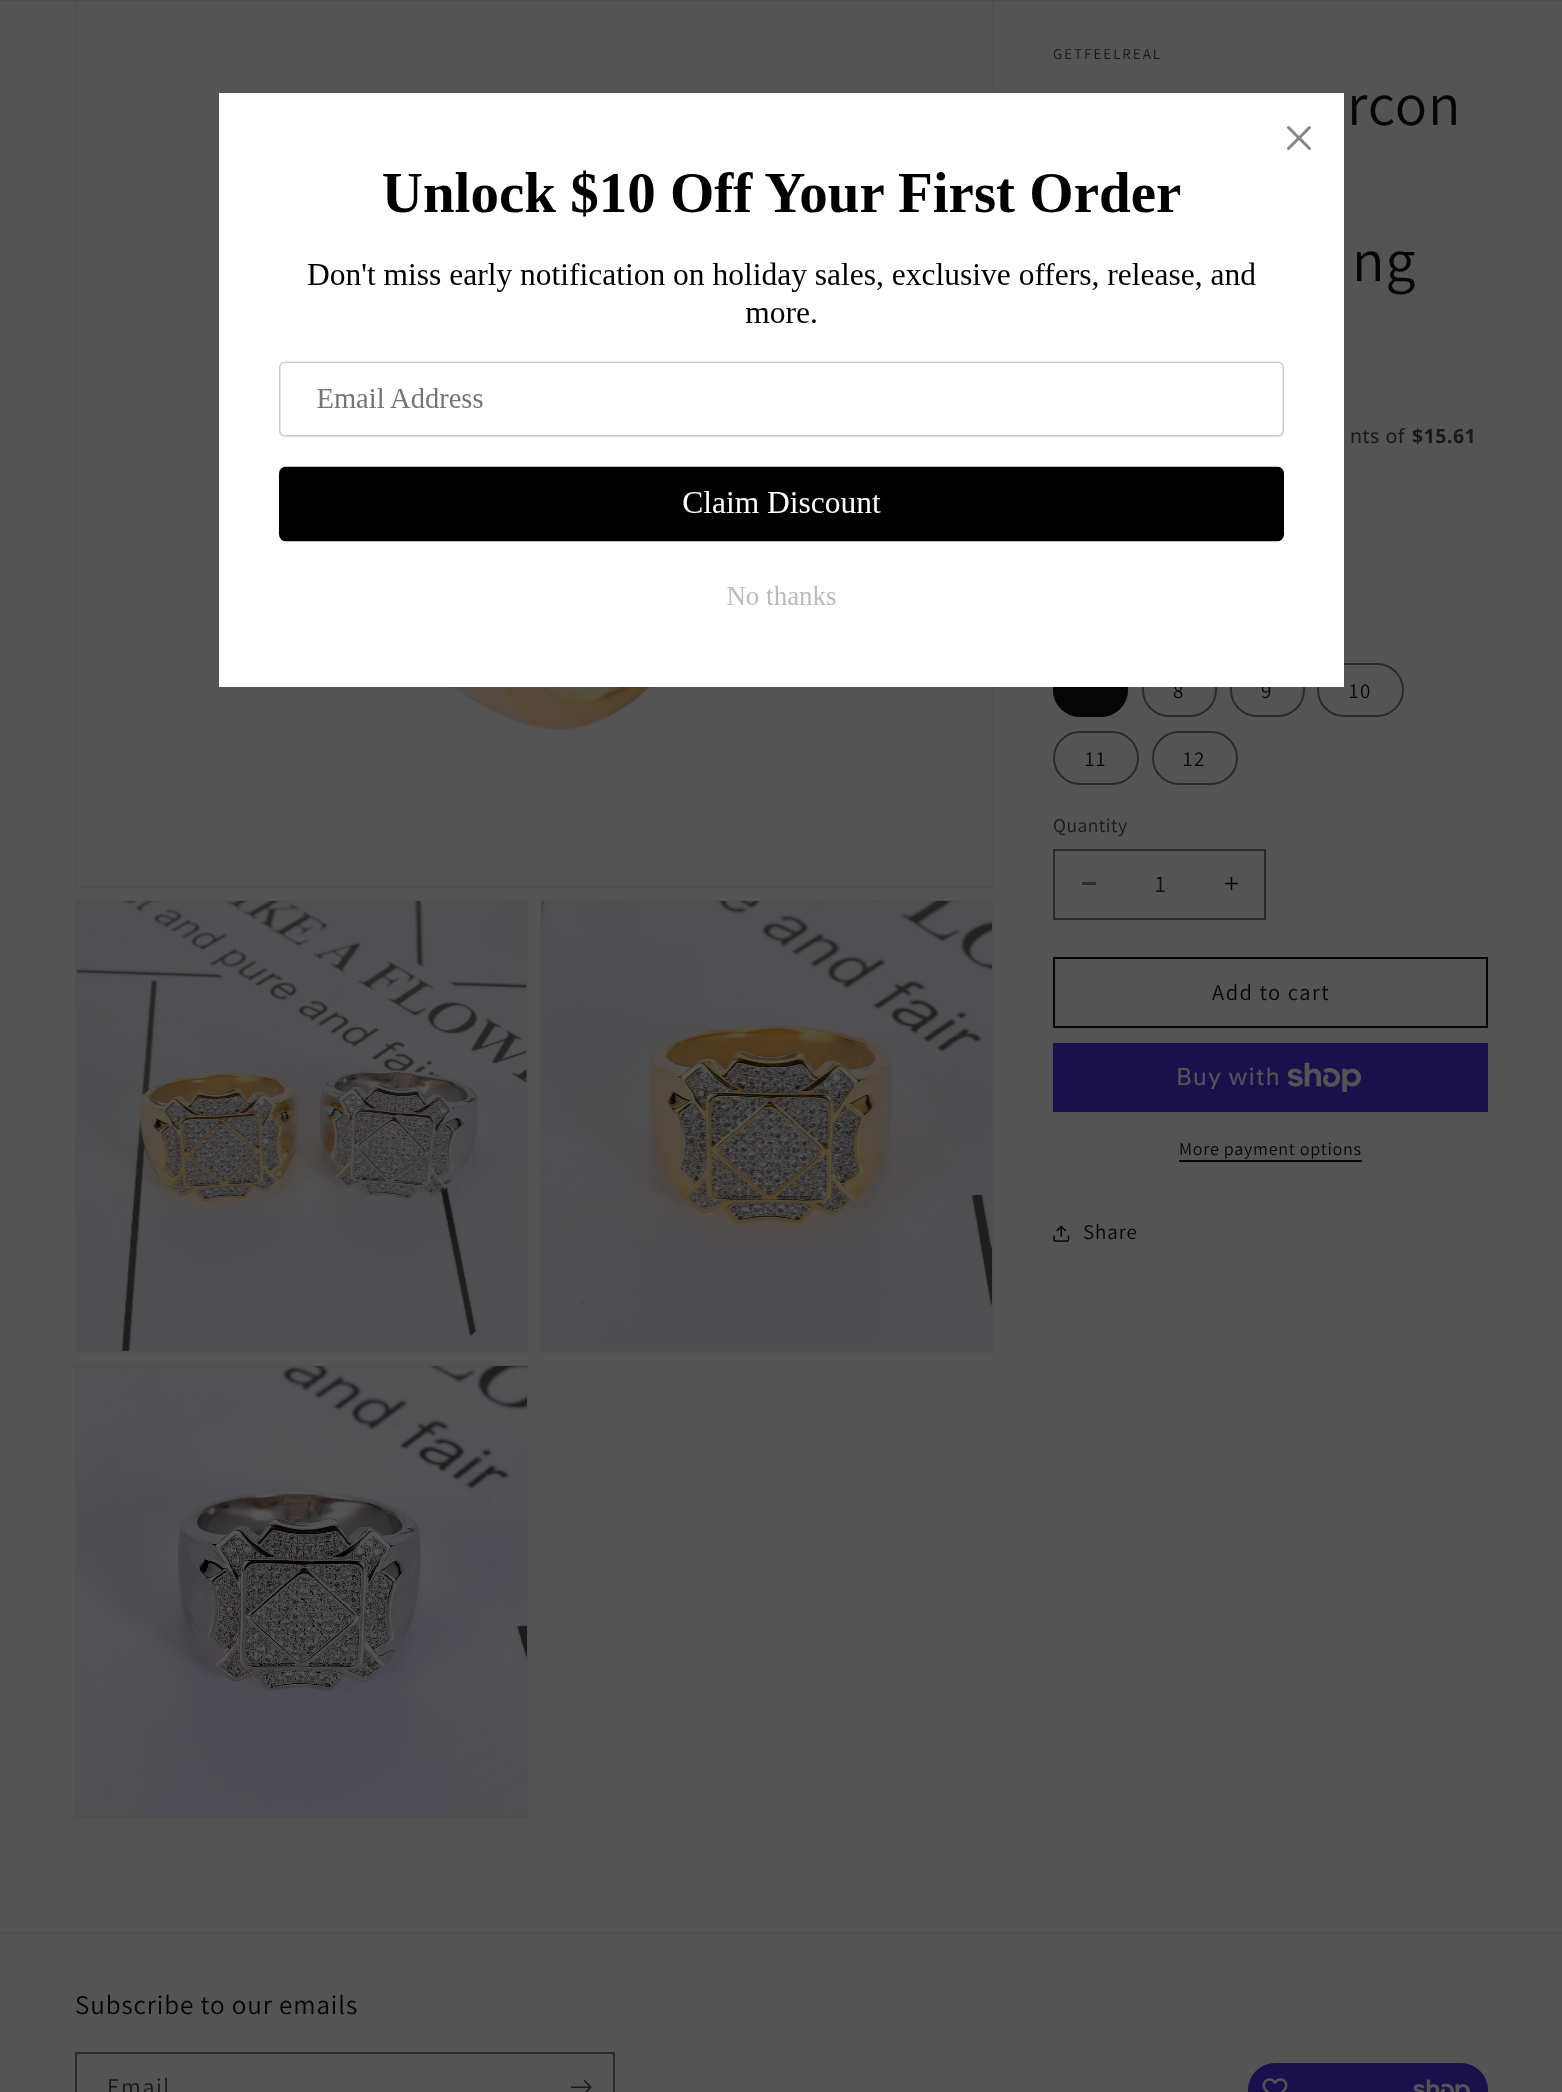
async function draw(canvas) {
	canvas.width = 1562;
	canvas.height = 2092;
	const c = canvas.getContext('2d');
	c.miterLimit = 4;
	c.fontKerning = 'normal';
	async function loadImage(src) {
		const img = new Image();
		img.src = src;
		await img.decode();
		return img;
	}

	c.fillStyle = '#fff';
	c.fillRect(0, 0, 1562, 2092);
	c.strokeStyle = '#f3f3f3';
	c.lineWidth = 2;
	c.strokeRect(76, -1, 916, 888);
	c.drawImage(await loadImage('img2.png'), 263, 0, 729, 886);
	c.fillStyle = '#12121214';
	c.fillRect(0, 0, 1562, 1);
	c.strokeRect(76, 901, 451, 451);
	c.drawImage(await loadImage('img3.png'), 77, 901, 450, 450);
	c.strokeRect(541, 901, 451, 451);
	c.drawImage(await loadImage('img4.png'), 541, 901, 451, 450);
	c.strokeRect(76, 1366, 451, 451);
	c.drawImage(await loadImage('img5.png'), 77, 1366, 450, 450);
	c.letterSpacing = '2px';
	c.font = '15px Assistant';
	c.fillStyle = '#4d4d4d';
	c.fillText('GETFEELREAL', 1053, 59);
	c.letterSpacing = '0.9px';
	c.font = '60px Assistant';
	c.fillStyle = '#121212';
	c.fillText('rcon', 1347, 125);
	c.fillText('ng', 1352, 281);
	c.letterSpacing = '0.5px';
	c.font = '19.5px Noto Sans';
	c.fillStyle = '#4d4d4d';
	c.fillText('nts of', 1350, 443);
	c.font = 'bold 19.5px Noto Sans';
	c.fillText('$15.61', 1412, 443);
	c.fillStyle = '#121212';
	c.beginPath();
	c.roundRect(1053, 663, 75, 54, 27);
	c.fill();
	c.beginPath();
	c.roundRect(1054, 664, 73, 52, 26);
	c.strokeStyle = '#1212128c';
	c.stroke();
	c.beginPath();
	c.roundRect(1143, 664, 73, 52, 26);
	c.strokeStyle = '#7d7d7d';
	c.stroke();
	c.letterSpacing = '1.5px';
	c.font = '21px Assistant';
	c.fillText('8', 1173, 698);
	c.beginPath();
	c.roundRect(1231, 664, 73, 52, 26);
	c.stroke();
	c.fillText('9', 1261, 698);
	c.beginPath();
	c.roundRect(1318, 664, 85, 52, 26);
	c.stroke();
	c.fillText('10', 1349, 698);
	c.beginPath();
	c.roundRect(1054, 732, 84, 52, 26);
	c.stroke();
	c.fillText('11', 1085, 766);
	c.beginPath();
	c.roundRect(1153, 732, 84, 52, 26);
	c.stroke();
	c.fillText('12', 1183, 766);
	c.letterSpacing = '0.5px';
	c.font = '19.5px Assistant';
	c.fillStyle = '#4d4d4d';
	c.fillText('Quantity', 1053, 832);
	c.fillStyle = '#898989';
	c.fillRect(1082, 882, 14, 3);
	c.drawImage(await loadImage('img6.png'), 1224, 876, 15, 15);
	c.strokeRect(1054, 850, 211, 69);
	c.letterSpacing = '0px';
	c.font = '24px Assistant';
	c.fillStyle = '#363636';
	c.fillText('1', 1155, 892);
	c.strokeStyle = '#121212';
	c.strokeRect(1054, 958, 433, 69);
	c.letterSpacing = '1.5px';
	c.font = '22.5px Assistant';
	c.fillStyle = '#121212';
	c.fillText('Add to cart', 1212, 1000);
	c.fillStyle = '#5433eb';
	c.fillRect(1053, 1043, 435, 69);
	c.letterSpacing = '0.9px';
	c.font = '24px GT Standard';
	c.fillStyle = '#fff';
	c.fillText('Buy with', 1176, 1085);
	c.drawImage(await loadImage('img7.png'), 1287, 1062, 74, 30);
	c.letterSpacing = '0.75px';
	c.font = '18px Assistant';
	c.fillStyle = '#121212';
	c.fillText('More payment options', 1179, 1155);
	c.fillRect(1179, 1160, 183, 2);
	c.drawImage(await loadImage('img8.png'), 1053, 1225, 17, 17);
	c.letterSpacing = '0.9px';
	c.font = '21px Assistant';
	c.fillText('Share', 1083, 1239);
	c.fillStyle = '#ececec';
	c.fillRect(0, 1932, 1562, 2);
	c.font = '27px Assistant';
	c.fillStyle = '#121212';
	c.fillText('Subscribe to our emails', 75, 2014);
	c.strokeStyle = '#7d7d7d';
	c.strokeRect(76, 2053, 538, 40);
	c.letterSpacing = '1.5px';
	c.font = '24px Assistant';
	c.fillStyle = '#4d4d4d';
	c.fillText('Email', 107, 2095);
	c.drawImage(await loadImage('img9.png'), 570, 2080, 22, 12);
	c.fillStyle = '#5433eb';
	c.beginPath();
	c.roundRect(1248, 2063, 240, 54, 27);
	c.fill();
	c.drawImage(await loadImage('img10.png'), 1262, 2078, 26, 14);
	c.drawImage(await loadImage('img11.png'), 1413, 2079, 57, 13);
	c.drawImage(await loadImage('img1.png'), 0, 0, 1562, 2092);
}

draw(document.querySelector('canvas'));
